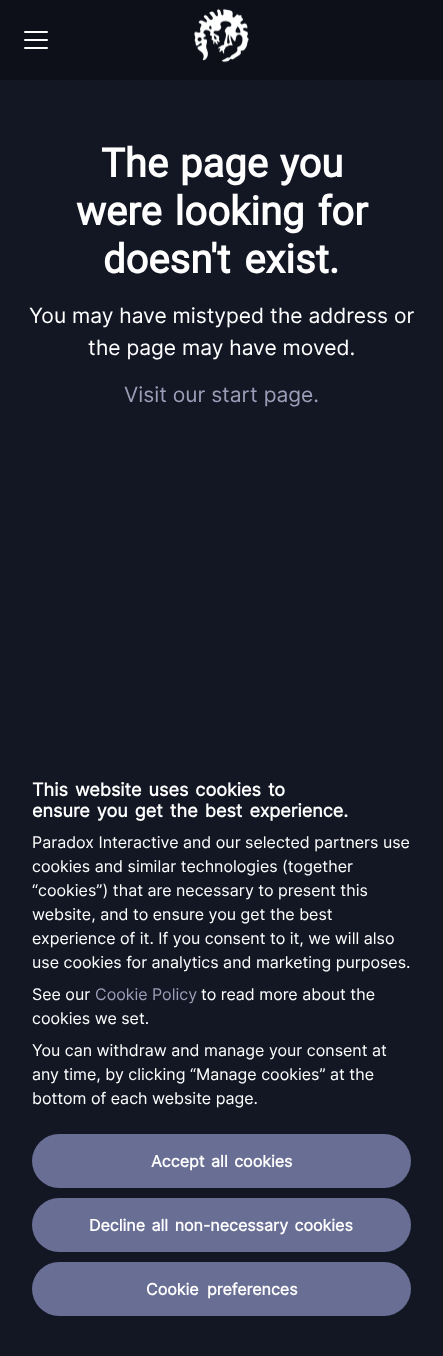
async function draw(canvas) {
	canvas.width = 443;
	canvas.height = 1356;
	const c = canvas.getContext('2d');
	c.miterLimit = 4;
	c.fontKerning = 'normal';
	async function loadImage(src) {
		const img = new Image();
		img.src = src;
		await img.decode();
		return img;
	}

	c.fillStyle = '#131724';
	c.fillRect(0, 0, 443, 1356);
	c.fillStyle = '#0d1019';
	c.fillRect(0, 0, 443, 80);
	c.fillStyle = '#fff';
	c.beginPath();
	c.roundRect(24, 31, 24, 2, 1);
	c.fill();
	c.beginPath();
	c.roundRect(24, 39, 24, 2, 1);
	c.fill();
	c.beginPath();
	c.roundRect(24, 47, 24, 2, 1);
	c.fill();
	c.drawImage(await loadImage('img1.png'), 194, 8, 55, 55);
	c.wordSpacing = '2px';
	c.font = 'bold 40px Roboto';
	c.fillText('The page you', 101, 177);
	c.wordSpacing = '3px';
	c.fillText('were looking for', 76, 225);
	c.wordSpacing = '4px';
	c.fillText('doesn\'t exist.', 103, 273);
	c.wordSpacing = '0px';
	c.font = '21px Inter';
	c.fillText('You may have mistyped the address or', 29, 323);
	c.fillText('the page may have moved.', 88, 355);
	c.fillStyle = '#9d9db8';
	c.fillText('Visit our start page.', 124, 402);
	c.wordSpacing = '2px';
	c.font = 'bold 18px Inter';
	c.fillStyle = '#fff';
	c.fillText('This website uses cookies to', 32, 796);
	c.fillText('ensure you get the best experience.', 32, 817);
	c.wordSpacing = '0px';
	c.font = '16px Inter';
	for (const [text, x, y] of [
		['Paradox Interactive and our selected partners use', 32, 848],
		['cookies and similar technologies (together', 32, 872],
		['“cookies”) that are necessary to present this', 32, 896],
		['website, and to ensure you get the best', 32, 920],
		['experience of it. If you consent to it, we will also', 32, 944],
		['use cookies for analytics and marketing purposes.', 32, 968],
		['See our', 32, 1000],
	]) {
		c.fillText(text, x, y);
	}
	c.fillStyle = '#9d9db8';
	c.fillText('Cookie Policy', 95, 1000);
	c.fillStyle = '#fff';
	for (const [text, x, y] of [
		['to read more about the', 201, 1000],
		['cookies we set.', 32, 1024],
		['You can withdraw and manage your consent at', 32, 1056],
		['any time, by clicking “Manage cookies” at the', 32, 1080],
		['bottom of each website page.', 32, 1104],
	]) {
		c.fillText(text, x, y);
	}
	c.fillStyle = '#696e95';
	c.beginPath();
	c.roundRect(32, 1134, 379, 54, 27);
	c.fill();
	c.wordSpacing = '2px';
	c.font = 'bold 16px Inter';
	c.fillStyle = '#fff';
	c.fillText('Accept all cookies', 151, 1167);
	c.fillStyle = '#696e95';
	c.beginPath();
	c.roundRect(32, 1198, 379, 54, 27);
	c.fill();
	c.fillStyle = '#fff';
	c.fillText('Decline all non-necessary cookies', 89, 1231);
	c.fillStyle = '#696e95';
	c.beginPath();
	c.roundRect(32, 1262, 379, 54, 27);
	c.fill();
	c.wordSpacing = '4px';
	c.fillStyle = '#fff';
	c.fillText('Cookie preferences', 146, 1295);
}

draw(document.querySelector('canvas'));
